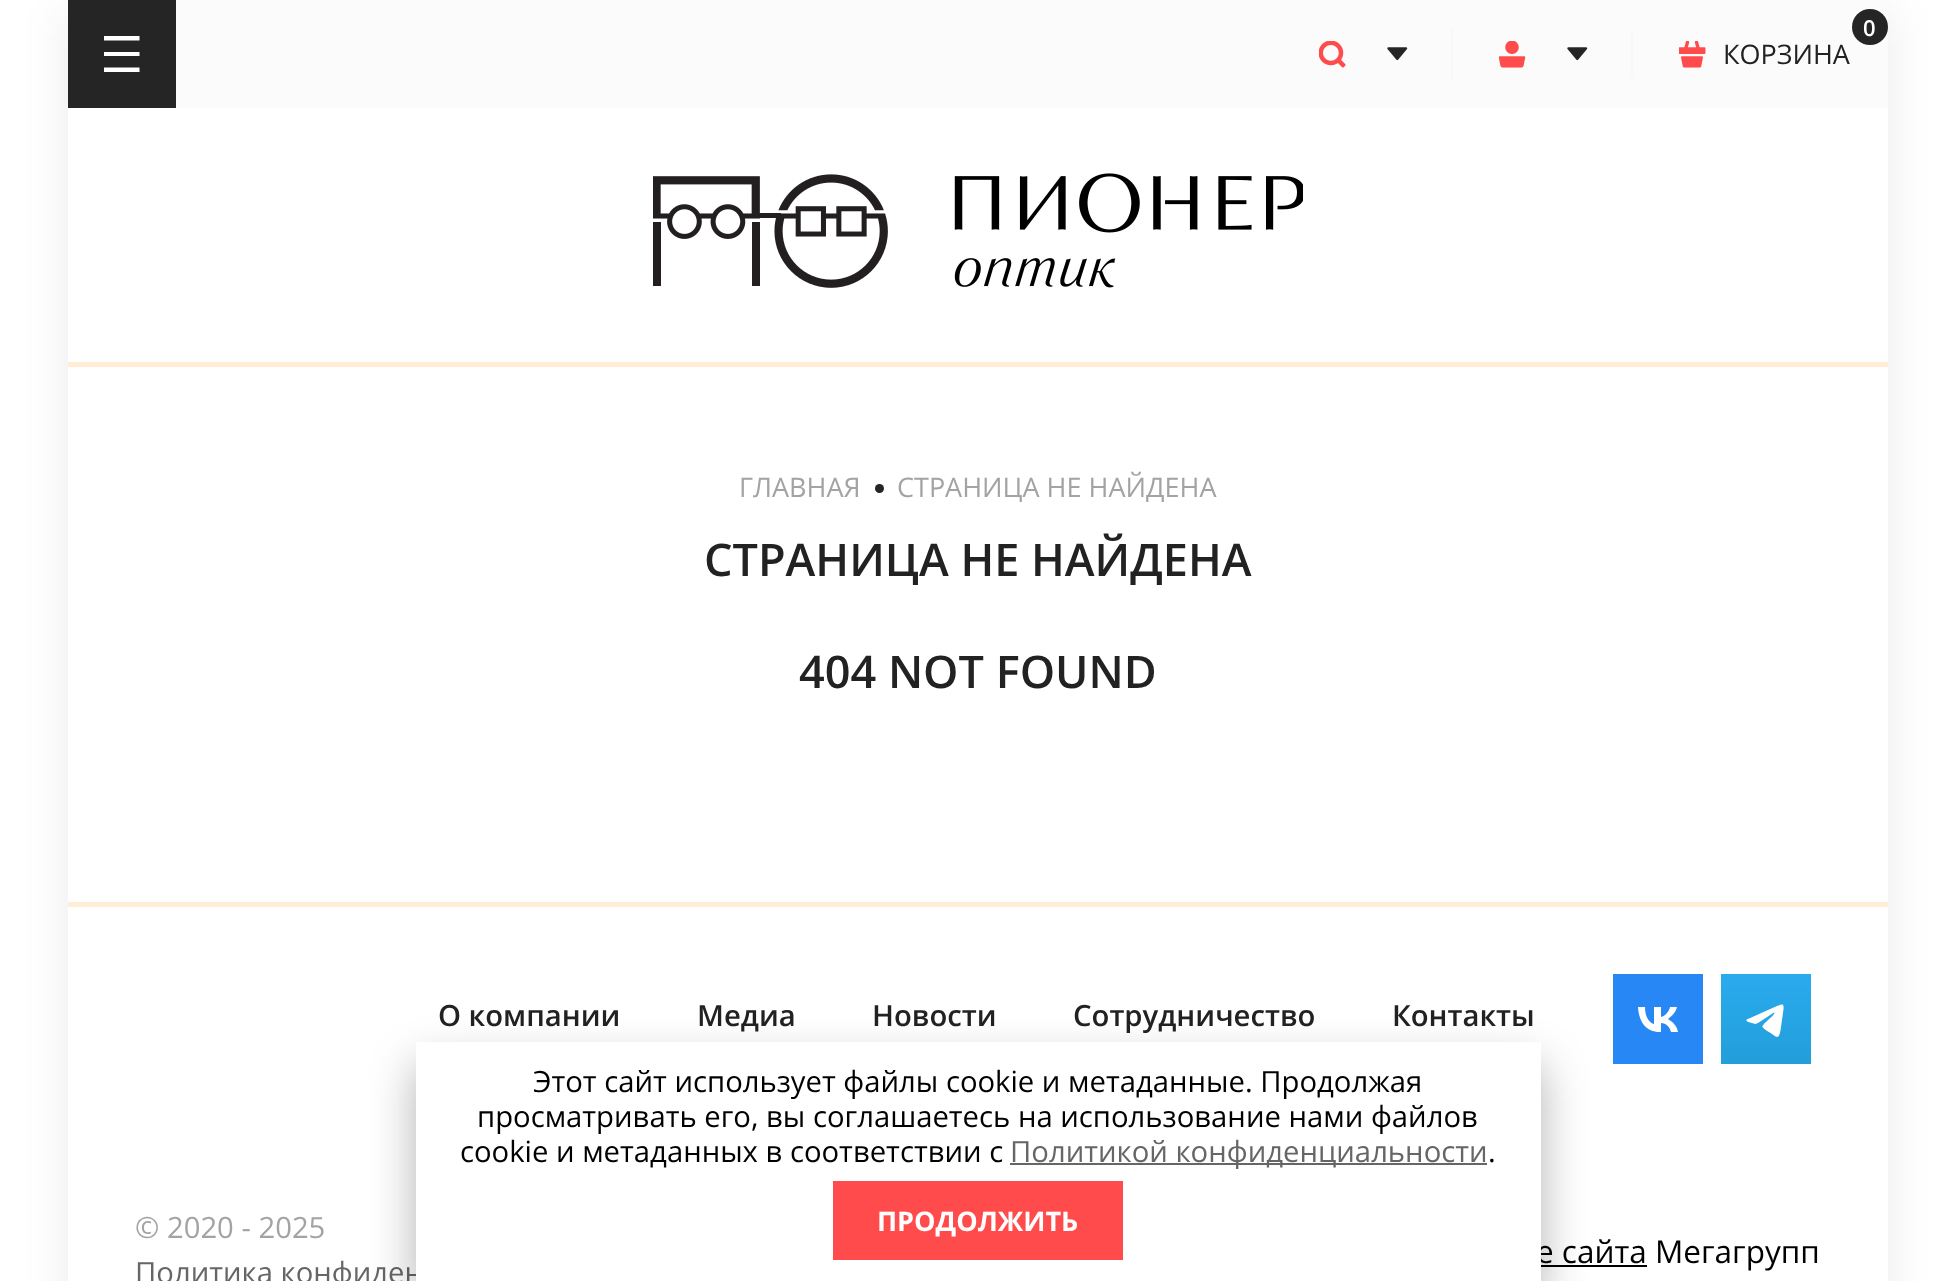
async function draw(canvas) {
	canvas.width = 1954;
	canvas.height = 1281;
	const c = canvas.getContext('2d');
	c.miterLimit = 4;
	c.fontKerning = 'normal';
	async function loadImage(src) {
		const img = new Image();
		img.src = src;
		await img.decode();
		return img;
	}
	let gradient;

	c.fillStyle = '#fff';
	c.fillRect(0, 0, 1954, 1281);
	c.fillStyle = '#00000014';
	c.filter = 'blur(22.5px)';
	c.beginPath();
	c.rect(68, 9, 1820, 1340);
	c.fill();
	c.filter = 'none';
	for (const [x, y, w, h, color] of [
		[68, 108, 1820, 1173, '#fff'],
		[176, 0, 1712, 108, '#fbfbfb'],
		[68, 0, 108, 108, '#252525'],
	]) {
		c.fillStyle = color;
		c.fillRect(x, y, w, h);
	}
	c.save();
	c.beginPath();
	c.rect(104, 36, 36, 36);
	c.clip();
	c.fillStyle = '#fff';
	c.beginPath();
	c.moveTo(103.5, 36);
	c.lineTo(139.5, 36);
	c.lineTo(139.5, 40.5);
	c.lineTo(103.5, 40.5);
	c.closePath();
	c.moveTo(103.5, 52);
	c.lineTo(139.5, 52);
	c.lineTo(139.5, 56);
	c.lineTo(103.5, 56);
	c.closePath();
	c.moveTo(103.5, 67.5);
	c.lineTo(139.5, 67.5);
	c.lineTo(139.5, 72);
	c.lineTo(103.5, 72);
	c.closePath();
	c.fill();
	c.restore();
	c.drawImage(await loadImage('img1.png'), 1319, 41, 27, 27);
	c.drawImage(await loadImage('img2.png'), 1387, 47, 21, 14);
	c.fillStyle = '#f4f9fb';
	c.fillRect(1451, 29, 2, 50);
	c.drawImage(await loadImage('img3.png'), 1499, 41, 27, 27);
	c.drawImage(await loadImage('img2.png'), 1567, 47, 21, 14);
	c.fillRect(1631, 29, 2, 50);
	c.drawImage(await loadImage('img4.png'), 1679, 41, 27, 27);
	c.fillStyle = '#252525';
	c.beginPath();
	c.arc(1870, 27, 18, 0, 2 * Math.PI);
	c.fill();
	c.font = '600 22px Open Sans';
	c.fillStyle = '#fff';
	c.fillText('0', 1863, 36);
	c.font = '27px Open Sans';
	c.fillStyle = '#222';
	c.fillText('КОРЗИНА', 1723, 64);
	c.fillStyle = '#ffedd5';
	c.fillRect(68, 362, 1820, 5);
	c.drawImage(await loadImage('img5.png'), 653, 173, 650, 115);
	c.fillStyle = '#a3a3a3';
	c.fillText('ГЛАВНАЯ', 739, 497);
	c.fillStyle = '#252525';
	c.beginPath();
	c.arc(879.5, 488.5, 4.5, 0, 2 * Math.PI);
	c.fill();
	c.fillStyle = '#a3a3a3';
	c.fillText('СТРАНИЦА НЕ НАЙДЕНА', 897, 497);
	c.font = '600 45px Open Sans';
	c.fillStyle = '#222';
	c.fillText('СТРАНИЦА НЕ НАЙДЕНА', 704, 576);
	c.fillText('404 NOT FOUND', 799, 688);
	c.fillStyle = '#ffedd5';
	c.fillRect(68, 902, 1820, 5);
	c.font = '600 29.25px Open Sans';
	c.fillStyle = '#222';
	for (const [text, x, y] of [
		['О компании', 438, 1026],
		['Медиа', 697, 1026],
		['Новости', 872, 1026],
		['Сотрудничество', 1073, 1026],
		['Контакты', 1392, 1026],
	]) {
		c.fillText(text, x, y);
	}
	c.fillStyle = '#2787f5';
	c.fillRect(1613, 974, 90, 90);
	c.fillStyle = '#fff';
	c.beginPath();
	c.moveTo(1660, 1032);
	c.bezierCurveTo(1646, 1032, 1639, 1022, 1638, 1007);
	c.lineTo(1645, 1007);
	c.bezierCurveTo(1645, 1018, 1650, 1023, 1654, 1024);
	c.lineTo(1654, 1007);
	c.lineTo(1661, 1007);
	c.lineTo(1661, 1017);
	c.bezierCurveTo(1665, 1016, 1669, 1012, 1670, 1007);
	c.lineTo(1677, 1007);
	c.bezierCurveTo(1676, 1012, 1672, 1016, 1668, 1019);
	c.bezierCurveTo(1673, 1022, 1677, 1026, 1678, 1032);
	c.lineTo(1671, 1032);
	c.bezierCurveTo(1670, 1027, 1666, 1023, 1661, 1023);
	c.lineTo(1661, 1032);
	c.closePath();
	c.fill();
	gradient = c.createLinearGradient(1766, 974, 1766, 1064);
	gradient.addColorStop(0, '#2aabee');
	gradient.addColorStop(1, '#229ed9');
	c.fillStyle = gradient;
	c.fillRect(1721, 974, 90, 90);
	c.fillStyle = '#fff';
	c.beginPath();
	c.moveTo(1749, 1018.5);
	c.lineTo(1777, 1006);
	c.bezierCurveTo(1783, 1003.5, 1784, 1003.5, 1783.5, 1009.5);
	c.lineTo(1780.5, 1030.5);
	c.bezierCurveTo(1779, 1038, 1778, 1038.5, 1772, 1034);
	c.bezierCurveTo(1770, 1032.5, 1763.5, 1029, 1762.5, 1027);
	c.bezierCurveTo(1761.5, 1024.5, 1775, 1015, 1774.5, 1013);
	c.lineTo(1774, 1012.5);
	c.lineTo(1758, 1023);
	c.lineTo(1755.5, 1024);
	c.lineTo(1750, 1022.5);
	c.bezierCurveTo(1746.5, 1021.5, 1744.5, 1020, 1749, 1018.5);
	c.closePath();
	c.fill('evenodd');
	c.font = '29.25px Open Sans';
	c.fillStyle = '#a3a3a3';
	c.fillText('© 2020 - 2025', 135, 1238);
	c.fillStyle = '#666';
	c.fillText('Политика конфиден', 135, 1283);
	c.fillStyle = '#000';
	c.fillRect(1541, 1265, 106, 2);
	c.font = '31.5px Open Sans';
	c.fillText('е сайта Мегагрупп', 1536, 1263);
	c.fillStyle = '#0000004d';
	c.filter = 'blur(22.5px)';
	c.beginPath();
	c.rect(416, 1064, 1125, 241);
	c.fill();
	c.filter = 'none';
	c.fillStyle = '#fff';
	c.fillRect(416, 1042, 1125, 239);
	c.font = '29.25px Open Sans';
	c.fillStyle = '#000';
	for (const [text, x, y] of [
		['Этот сайт использует файлы cookie и метаданные. Продолжая', 533, 1092],
		['просматривать его, вы соглашаетесь на использование нами файлов', 477, 1127],
		['cookie и метаданных в соответствии с', 460, 1162],
	]) {
		c.fillText(text, x, y);
	}
	c.fillStyle = '#666';
	c.fillRect(1010, 1163, 477, 2);
	c.fillText('Политикой конфиденциальности', 1010, 1162);
	c.fillStyle = '#000';
	c.fillText('.', 1488, 1162);
	c.fillStyle = '#ff4b4b';
	c.fillRect(833, 1181, 290, 79);
	c.font = 'bold 27px Open Sans';
	c.fillStyle = '#fff';
	c.fillText('ПРОДОЛЖИТЬ', 877, 1231);
}

draw(document.querySelector('canvas'));
